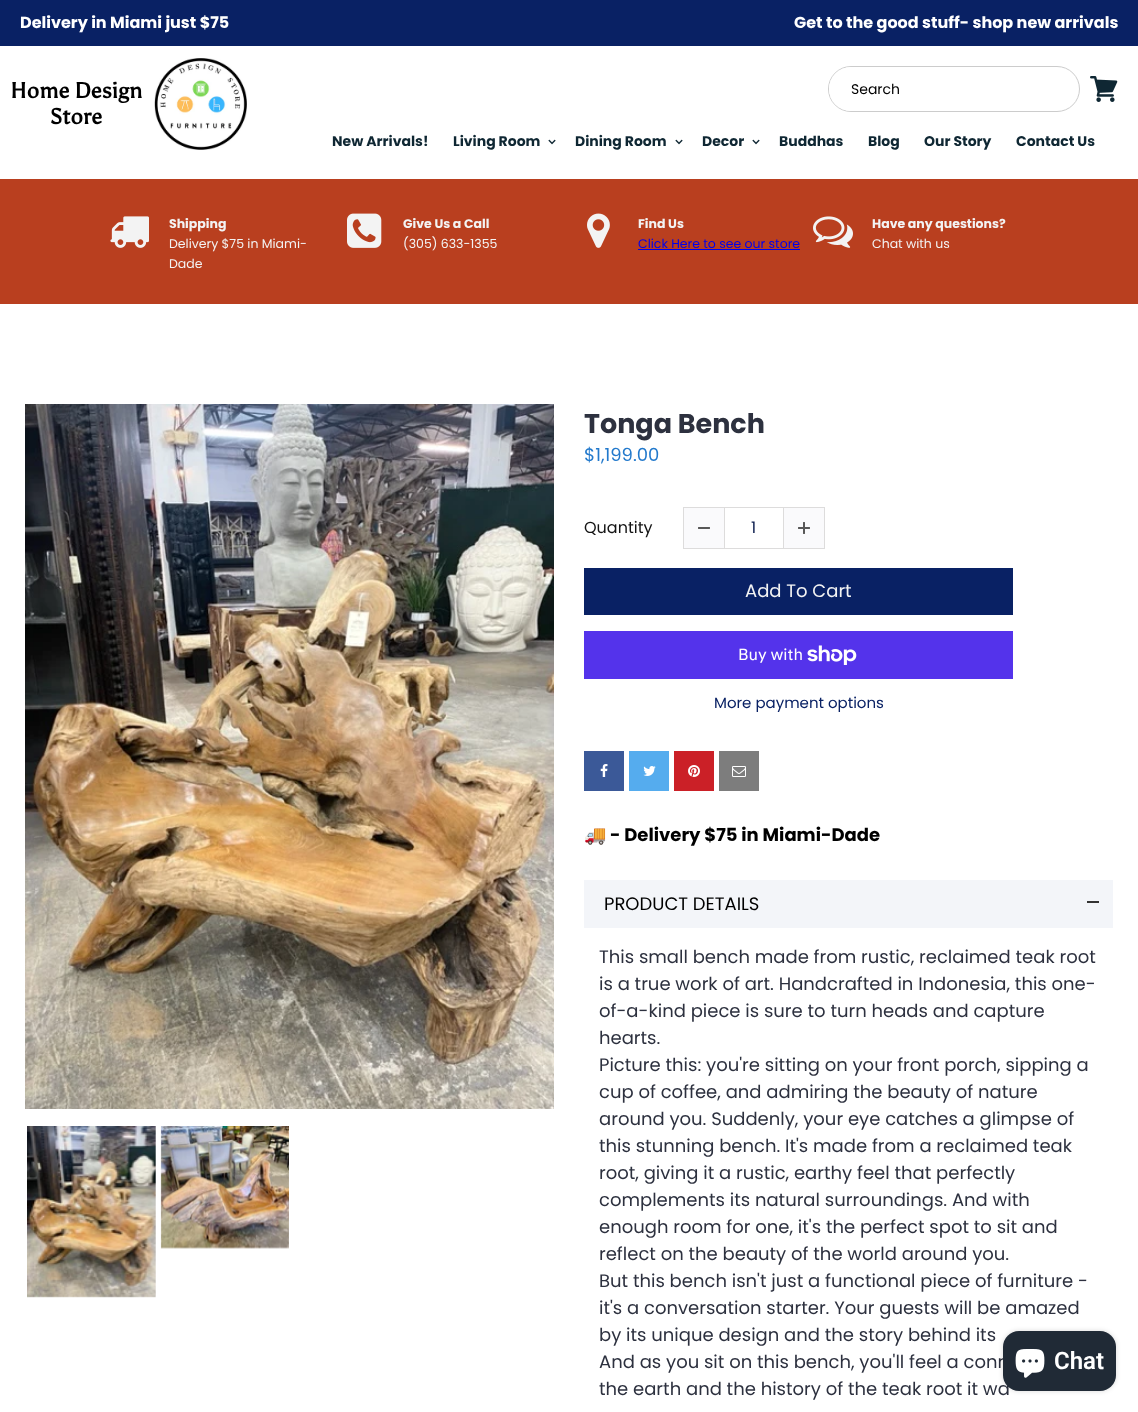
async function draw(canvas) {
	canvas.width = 1138;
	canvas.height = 1412;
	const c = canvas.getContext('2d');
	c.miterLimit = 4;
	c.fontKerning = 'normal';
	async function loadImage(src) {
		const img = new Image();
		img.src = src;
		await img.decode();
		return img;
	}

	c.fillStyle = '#fff';
	c.fillRect(0, 0, 1138, 1412);
	c.fillStyle = '#092164';
	c.fillRect(0, 0, 1138, 46);
	c.font = 'bold 16px Poppins';
	c.fillStyle = '#fff';
	c.fillText('Delivery in Miami just $75', 20, 28);
	c.fillText('Get to the good stuff- shop new arrivals', 794, 28);
	c.font = 'bold 22px Asul';
	c.fillStyle = '#000';
	c.fillText('Home Design', 10, 98);
	c.fillText('Store', 50, 124);
	c.drawImage(await loadImage('img1.png'), 154, 58, 93, 92);
	c.beginPath();
	c.roundRect(828.5, 66.5, 251, 45, 22.5);
	c.strokeStyle = '#ccc';
	c.stroke();
	c.fillStyle = '#fff';
	c.beginPath();
	c.roundRect(829, 67, 197, 44, 22);
	c.fill();
	c.font = '14px Poppins';
	c.fillStyle = '#000';
	c.fillText('Search', 851, 94);
	c.drawImage(await loadImage('img2.png'), 1090, 76, 28, 26);
	c.font = 'bold 14px Poppins';
	c.fillStyle = '#0f2733';
	c.fillText('New Arrivals!', 332, 146);
	c.fillText('Living Room', 453, 146);
	c.drawImage(await loadImage('img3.png'), 548, 139, 8, 6);
	c.fillText('Dining Room', 575, 146);
	c.drawImage(await loadImage('img3.png'), 675, 139, 8, 6);
	c.fillText('Decor', 702, 146);
	c.drawImage(await loadImage('img3.png'), 752, 139, 8, 6);
	for (const [text, x, y] of [
		['Buddhas', 779, 146],
		['Blog', 868, 146],
		['Our Story', 924, 146],
		['Contact Us', 1016, 146],
	]) {
		c.fillText(text, x, y);
	}
	c.fillStyle = '#b93f1f';
	c.fillRect(0, 179, 1138, 125);
	c.drawImage(await loadImage('img4.png'), 110, 216, 39, 32);
	c.font = 'bold 12.5px Poppins';
	c.fillStyle = '#f3f3f3';
	c.fillText('Shipping', 169, 228);
	c.font = '12.5px Poppins';
	c.fillText('Delivery $75 in Miami-', 169, 248);
	c.fillText('Dade', 169, 268);
	c.drawImage(await loadImage('img5.png'), 347, 213, 35, 35);
	c.font = 'bold 12.5px Poppins';
	c.fillText('Give Us a Call', 403, 228);
	c.font = '12.5px Poppins';
	c.fillText('(305) 633-1355', 403, 248);
	c.drawImage(await loadImage('img6.png'), 587, 213, 23, 35);
	c.font = 'bold 12.5px Poppins';
	c.fillText('Find Us', 638, 228);
	c.font = '12.5px Poppins';
	c.fillStyle = '#00e';
	c.fillText('Click Here to see our store', 638, 248);
	c.fillRect(638, 249, 162, 1);
	c.drawImage(await loadImage('img7.png'), 813, 216, 40, 32);
	c.font = 'bold 12.5px Poppins';
	c.fillStyle = '#f3f3f3';
	c.fillText('Have any questions?', 872, 228);
	c.font = '12.5px Poppins';
	c.fillText('Chat with us', 872, 248);
	c.drawImage(await loadImage('img8.png'), 25, 404, 529, 705);
	c.drawImage(await loadImage('img9.png'), 27, 1126, 129, 172);
	c.drawImage(await loadImage('img10.png'), 160, 1126, 129, 123);
	c.font = 'bold 27px Poppins';
	c.fillStyle = '#2d313f';
	c.fillText('Tonga Bench', 584, 433);
	c.font = '18px Poppins';
	c.fillStyle = '#2279cc';
	c.fillText('$1,199.00', 584, 461);
	c.font = '16px Poppins';
	c.fillStyle = '#141414';
	c.fillText('Quantity', 584, 533);
	c.fillStyle = '#dddcdc';
	c.fillRect(724, 508, 1, 40);
	c.fillRect(783, 508, 1, 40);
	c.strokeStyle = '#dddcdc';
	c.strokeRect(683.5, 507.5, 141, 41);
	c.fillStyle = '#fafafc';
	c.fillRect(684, 508, 40, 40);
	c.drawImage(await loadImage('img11.png'), 698, 527, 12, 2);
	c.fillStyle = '#07194b';
	c.fillText('1', 751, 533);
	c.fillStyle = '#fafafc';
	c.fillRect(784, 508, 40, 40);
	c.drawImage(await loadImage('img12.png'), 798, 522, 12, 12);
	c.fillStyle = '#092164';
	c.fillRect(584, 568, 429, 47);
	c.font = '18px Poppins';
	c.fillStyle = '#f3f3f3';
	c.fillText('Add To Cart', 745, 597);
	c.fillStyle = '#5433eb';
	c.fillRect(584, 631, 429, 48);
	c.font = '16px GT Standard';
	c.fillStyle = '#fff';
	c.fillText('Buy with', 738, 660);
	c.drawImage(await loadImage('img13.png'), 807, 645, 50, 20);
	c.font = '15px Poppins';
	c.fillStyle = '#092164';
	c.fillText('More payment options', 714, 708);
	c.fillStyle = '#3b5998';
	c.fillRect(584, 751, 40, 40);
	c.drawImage(await loadImage('img14.png'), 600, 764, 8, 13);
	c.fillStyle = '#55acee';
	c.fillRect(629, 751, 40, 40);
	c.drawImage(await loadImage('img15.png'), 643, 766, 13, 10);
	c.fillStyle = '#cb2027';
	c.fillRect(674, 751, 40, 40);
	c.drawImage(await loadImage('img16.png'), 688, 765, 12, 12);
	c.fillStyle = '#7d7d7d';
	c.fillRect(719, 751, 40, 40);
	c.drawImage(await loadImage('img17.png'), 732, 766, 14, 11);
	c.font = '18px Noto Color Emoji';
	c.fillStyle = '#000';
	c.fillText('🚚', 584, 841);
	c.font = 'bold 18px Poppins';
	c.fillText('- Delivery $75 in Miami-Dade', 610, 841);
	c.fillStyle = '#f3f5f9';
	c.fillRect(584, 880, 529, 48);
	c.font = '18px Poppins';
	c.fillStyle = '#000';
	c.fillText('PRODUCT DETAILS', 604, 910);
	c.fillStyle = '#333';
	c.fillRect(1087, 901, 12, 2);
	c.fillStyle = '#2d313f';
	for (const [text, x, y] of [
		['This small bench made from rustic, reclaimed teak root', 599, 963],
		['is a true work of art. Handcrafted in Indonesia, this one-', 599, 990],
		['of-a-kind piece is sure to turn heads and capture', 599, 1017],
		['hearts.', 599, 1044],
		['Picture this: you\'re sitting on your front porch, sipping a', 599, 1071],
		['cup of coffee, and admiring the beauty of nature', 599, 1098],
		['around you. Suddenly, your eye catches a glimpse of', 599, 1125],
		['this stunning bench. It\'s made from a reclaimed teak', 599, 1152],
		['root, giving it a rustic, earthy feel that perfectly', 599, 1179],
		['complements its natural surroundings. And with', 599, 1206],
		['enough room for one, it\'s the perfect spot to sit and', 599, 1233],
		['reflect on the beauty of the world around you.', 599, 1260],
		['But this bench isn\'t just a functional piece of furniture -', 599, 1287],
		['it\'s a conversation starter. Your guests will be amazed', 599, 1314],
		['by its unique design and the story behind its', 599, 1341],
		['And as you sit on this bench, you\'ll feel a conn', 599, 1368],
		['the earth and the history of the teak root it wa', 599, 1395],
	]) {
		c.fillText(text, x, y);
	}
	c.fillStyle = '#00000026';
	c.filter = 'blur(2.5px)';
	c.beginPath();
	c.roundRect(1003, 1331, 113, 60, 16);
	c.fill();
	c.filter = 'none';
	c.fillStyle = '#202a36';
	c.beginPath();
	c.roundRect(1003, 1331, 113, 60, 16);
	c.fill();
	c.drawImage(await loadImage('img18.png'), 1015, 1349, 30, 29);
	c.font = '600 24px Roboto';
	c.fillStyle = '#fff';
	c.fillText('Chat', 1054, 1369);
}

draw(document.querySelector('canvas'));
